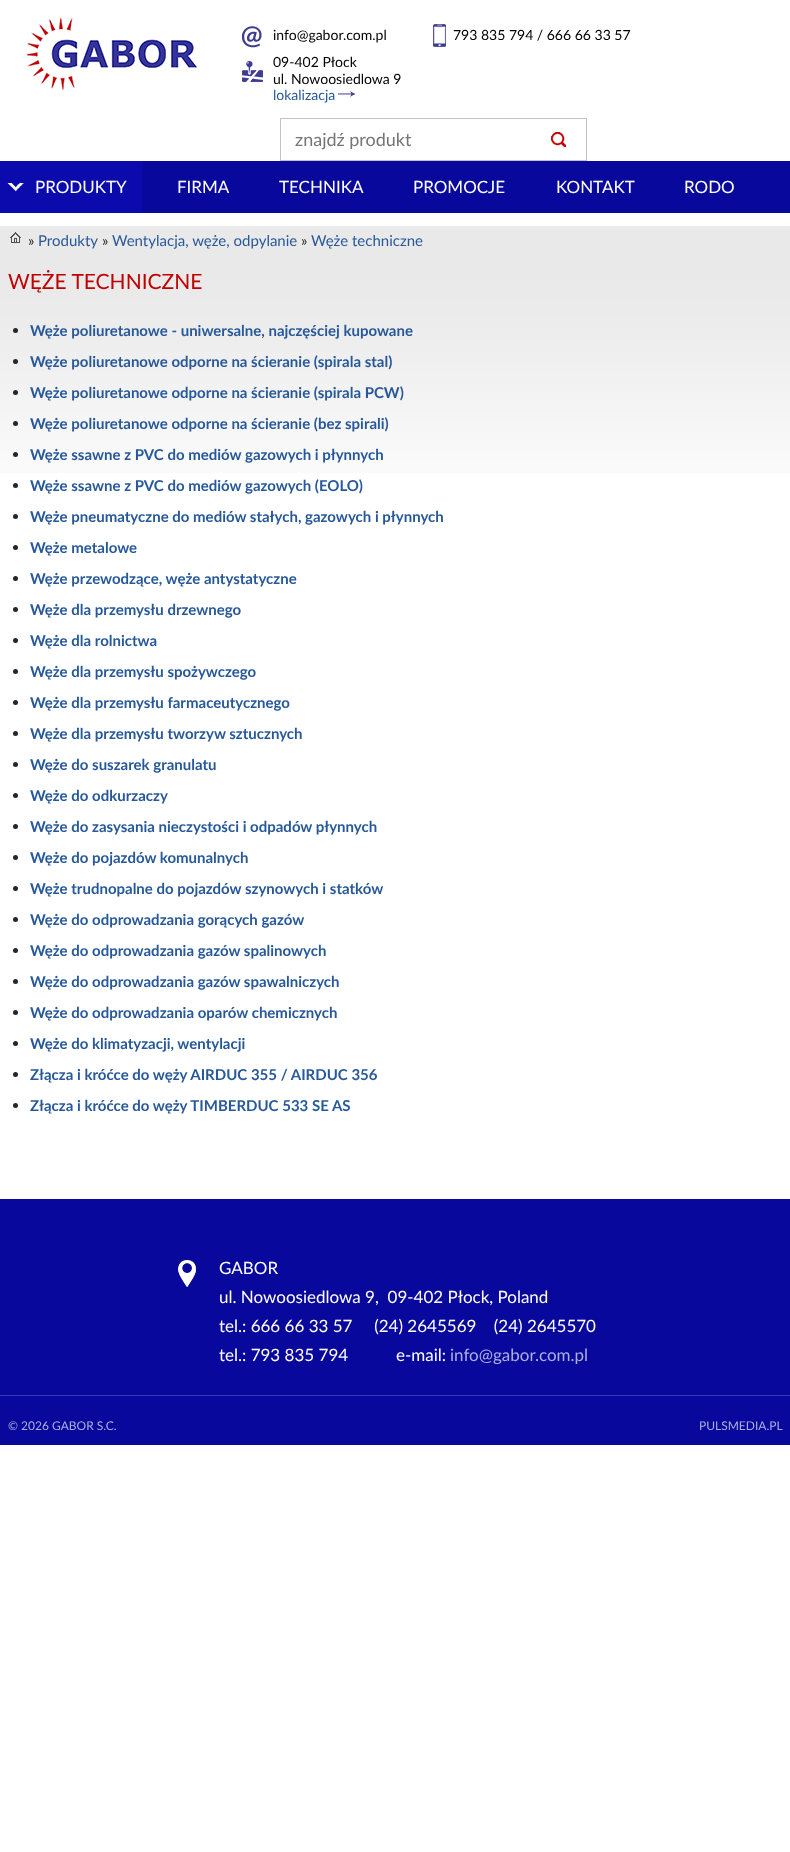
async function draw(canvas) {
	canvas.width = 790;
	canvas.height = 1852;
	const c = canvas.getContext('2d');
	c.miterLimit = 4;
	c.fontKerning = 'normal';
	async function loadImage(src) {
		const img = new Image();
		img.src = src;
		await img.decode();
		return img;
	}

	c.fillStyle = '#fff';
	c.fillRect(0, 0, 790, 1852);
	c.drawImage(await loadImage('img1.png'), 27, 17, 170, 73);
	c.drawImage(await loadImage('img2.png'), 241, 26, 21, 22);
	c.font = '14px Lato';
	c.fillStyle = '#000';
	c.fillText('info@gabor.com.pl', 273, 40);
	c.drawImage(await loadImage('img3.png'), 433, 24, 13, 23);
	c.fillText('793 835 794 / 666 66 33 57', 453, 40);
	c.drawImage(await loadImage('img4.png'), 242, 61, 21, 21);
	c.fillText('09-402 Płock', 273, 67);
	c.fillText('ul. Nowoosiedlowa 9', 273, 84);
	c.drawImage(await loadImage('img5.png'), 338, 91, 17, 6);
	c.fillStyle = '#275899';
	c.fillText('lokalizacja', 273, 100);
	c.strokeStyle = '#c3c3c3';
	c.strokeRect(280.5, 118.5, 306, 42);
	c.font = '18px Lato';
	c.fillStyle = '#757575';
	c.fillText('znajdź produkt', 295, 146);
	c.drawImage(await loadImage('img6.png'), 551, 132, 15, 15);
	c.fillStyle = '#08089d';
	c.fillRect(142, 161, 648, 52);
	c.fillStyle = '#0a0aad';
	c.fillRect(0, 161, 142, 52);
	c.drawImage(await loadImage('img7.png'), 7, 183, 18, 9);
	c.font = '17px Lato';
	c.fillStyle = '#fff';
	for (const [text, x, y] of [
		['PRODUKTY', 35, 193],
		['FIRMA', 177, 193],
		['TECHNIKA', 279, 193],
		['PROMOCJE', 413, 193],
		['KONTAKT', 556, 193],
		['RODO', 684, 193],
	]) {
		c.fillText(text, x, y);
	}
	c.drawImage(await loadImage('img8.png'), 0, 226, 790, 247);
	c.drawImage(await loadImage('img9.png'), 10, 232, 11, 11);
	c.font = '15px Lato';
	c.fillStyle = '#262626';
	c.fillText('»', 28, 246);
	c.fillStyle = '#275899';
	c.fillText('Produkty', 38, 246);
	c.fillStyle = '#262626';
	c.fillText('»', 102, 246);
	c.fillStyle = '#275899';
	c.fillText('Wentylacja, węże, odpylanie', 112, 246);
	c.fillStyle = '#262626';
	c.fillText('»', 301, 246);
	c.fillStyle = '#275899';
	c.fillText('Węże techniczne', 311, 246);
	c.font = '21px Lato';
	c.fillStyle = '#c00000';
	c.fillText('WĘŻE TECHNICZNE', 8, 289);
	c.fillStyle = '#262626';
	c.beginPath();
	c.arc(15.5, 330.5, 2.5, 0, 2 * Math.PI);
	c.fill();
	c.font = 'bold 15px Lato';
	c.fillStyle = '#275899';
	c.fillText('Węże poliuretanowe - uniwersalne, najczęściej kupowane', 30, 336);
	c.fillStyle = '#262626';
	c.beginPath();
	c.arc(15.5, 361.5, 2.5, 0, 2 * Math.PI);
	c.fill();
	c.fillStyle = '#275899';
	c.fillText('Węże poliuretanowe odporne na ścieranie (spirala stal)', 30, 367);
	c.fillStyle = '#262626';
	c.beginPath();
	c.arc(15.5, 392.5, 2.5, 0, 2 * Math.PI);
	c.fill();
	c.fillStyle = '#275899';
	c.fillText('Węże poliuretanowe odporne na ścieranie (spirala PCW)', 30, 398);
	c.fillStyle = '#262626';
	c.beginPath();
	c.arc(15.5, 423.5, 2.5, 0, 2 * Math.PI);
	c.fill();
	c.fillStyle = '#275899';
	c.fillText('Węże poliuretanowe odporne na ścieranie (bez spirali)', 30, 429);
	c.fillStyle = '#262626';
	c.beginPath();
	c.arc(15.5, 454.5, 2.5, 0, 2 * Math.PI);
	c.fill();
	c.fillStyle = '#275899';
	c.fillText('Węże ssawne z PVC do mediów gazowych i płynnych', 30, 460);
	c.fillStyle = '#262626';
	c.beginPath();
	c.arc(15.5, 485.5, 2.5, 0, 2 * Math.PI);
	c.fill();
	c.fillStyle = '#275899';
	c.fillText('Węże ssawne z PVC do mediów gazowych (EOLO)', 30, 491);
	c.fillStyle = '#262626';
	c.beginPath();
	c.arc(15.5, 516.5, 2.5, 0, 2 * Math.PI);
	c.fill();
	c.fillStyle = '#275899';
	c.fillText('Węże pneumatyczne do mediów stałych, gazowych i płynnych', 30, 522);
	c.fillStyle = '#262626';
	c.beginPath();
	c.arc(15.5, 547.5, 2.5, 0, 2 * Math.PI);
	c.fill();
	c.fillStyle = '#275899';
	c.fillText('Węże metalowe', 30, 553);
	c.fillStyle = '#262626';
	c.beginPath();
	c.arc(15.5, 578.5, 2.5, 0, 2 * Math.PI);
	c.fill();
	c.fillStyle = '#275899';
	c.fillText('Węże przewodzące, węże antystatyczne', 30, 584);
	c.fillStyle = '#262626';
	c.beginPath();
	c.arc(15.5, 609.5, 2.5, 0, 2 * Math.PI);
	c.fill();
	c.fillStyle = '#275899';
	c.fillText('Węże dla przemysłu drzewnego', 30, 615);
	c.fillStyle = '#262626';
	c.beginPath();
	c.arc(15.5, 640.5, 2.5, 0, 2 * Math.PI);
	c.fill();
	c.fillStyle = '#275899';
	c.fillText('Węże dla rolnictwa', 30, 646);
	c.fillStyle = '#262626';
	c.beginPath();
	c.arc(15.5, 671.5, 2.5, 0, 2 * Math.PI);
	c.fill();
	c.fillStyle = '#275899';
	c.fillText('Węże dla przemysłu spożywczego', 30, 677);
	c.fillStyle = '#262626';
	c.beginPath();
	c.arc(15.5, 702.5, 2.5, 0, 2 * Math.PI);
	c.fill();
	c.fillStyle = '#275899';
	c.fillText('Węże dla przemysłu farmaceutycznego', 30, 708);
	c.fillStyle = '#262626';
	c.beginPath();
	c.arc(15.5, 733.5, 2.5, 0, 2 * Math.PI);
	c.fill();
	c.fillStyle = '#275899';
	c.fillText('Węże dla przemysłu tworzyw sztucznych', 30, 739);
	c.fillStyle = '#262626';
	c.beginPath();
	c.arc(15.5, 764.5, 2.5, 0, 2 * Math.PI);
	c.fill();
	c.fillStyle = '#275899';
	c.fillText('Węże do suszarek granulatu', 30, 770);
	c.fillStyle = '#262626';
	c.beginPath();
	c.arc(15.5, 795.5, 2.5, 0, 2 * Math.PI);
	c.fill();
	c.fillStyle = '#275899';
	c.fillText('Węże do odkurzaczy', 30, 801);
	c.fillStyle = '#262626';
	c.beginPath();
	c.arc(15.5, 826.5, 2.5, 0, 2 * Math.PI);
	c.fill();
	c.fillStyle = '#275899';
	c.fillText('Węże do zasysania nieczystości i odpadów płynnych', 30, 832);
	c.fillStyle = '#262626';
	c.beginPath();
	c.arc(15.5, 857.5, 2.5, 0, 2 * Math.PI);
	c.fill();
	c.fillStyle = '#275899';
	c.fillText('Węże do pojazdów komunalnych', 30, 863);
	c.fillStyle = '#262626';
	c.beginPath();
	c.arc(15.5, 888.5, 2.5, 0, 2 * Math.PI);
	c.fill();
	c.fillStyle = '#275899';
	c.fillText('Węże trudnopalne do pojazdów szynowych i statków', 30, 894);
	c.fillStyle = '#262626';
	c.beginPath();
	c.arc(15.5, 919.5, 2.5, 0, 2 * Math.PI);
	c.fill();
	c.fillStyle = '#275899';
	c.fillText('Węże do odprowadzania gorących gazów', 30, 925);
	c.fillStyle = '#262626';
	c.beginPath();
	c.arc(15.5, 950.5, 2.5, 0, 2 * Math.PI);
	c.fill();
	c.fillStyle = '#275899';
	c.fillText('Węże do odprowadzania gazów spalinowych', 30, 956);
	c.fillStyle = '#262626';
	c.beginPath();
	c.arc(15.5, 981.5, 2.5, 0, 2 * Math.PI);
	c.fill();
	c.fillStyle = '#275899';
	c.fillText('Węże do odprowadzania gazów spawalniczych', 30, 987);
	c.fillStyle = '#262626';
	c.beginPath();
	c.arc(15.5, 1012.5, 2.5, 0, 2 * Math.PI);
	c.fill();
	c.fillStyle = '#275899';
	c.fillText('Węże do odprowadzania oparów chemicznych', 30, 1018);
	c.fillStyle = '#262626';
	c.beginPath();
	c.arc(15.5, 1043.5, 2.5, 0, 2 * Math.PI);
	c.fill();
	c.fillStyle = '#275899';
	c.fillText('Węże do klimatyzacji, wentylacji', 30, 1049);
	c.fillStyle = '#262626';
	c.beginPath();
	c.arc(15.5, 1074.5, 2.5, 0, 2 * Math.PI);
	c.fill();
	c.fillStyle = '#275899';
	c.fillText('Złącza i króćce do węży AIRDUC 355 / AIRDUC 356', 30, 1080);
	c.fillStyle = '#262626';
	c.beginPath();
	c.arc(15.5, 1105.5, 2.5, 0, 2 * Math.PI);
	c.fill();
	c.fillStyle = '#275899';
	c.fillText('Złącza i króćce do węży TIMBERDUC 533 SE AS', 30, 1111);
	c.fillStyle = '#08089d';
	c.fillRect(0, 1199, 790, 246);
	c.drawImage(await loadImage('img10.png'), 178, 1260, 18, 27);
	c.font = '17px Lato';
	c.fillStyle = '#fff';
	for (const [text, x, y] of [
		['GABOR', 219, 1274],
		['ul. Nowoosiedlowa 9,  09-402 Płock, Poland', 219, 1303],
		['tel.: 666 66 33 57     (24) 2645569    (24) 2645570', 219, 1332],
		['tel.: 793 835 794           e-mail:', 219, 1361],
	]) {
		c.fillText(text, x, y);
	}
	c.fillStyle = '#aeaedf';
	c.fillText('info@gabor.com.pl', 450, 1361);
	c.fillStyle = '#3938b5';
	c.fillRect(0, 1395, 790, 1);
	c.font = '12px Lato';
	c.fillStyle = '#aeaedf';
	c.fillText('© 2026 GABOR S.C.', 8, 1430);
	c.fillText('PULSMEDIA.PL', 699, 1430);
}

draw(document.querySelector('canvas'));
